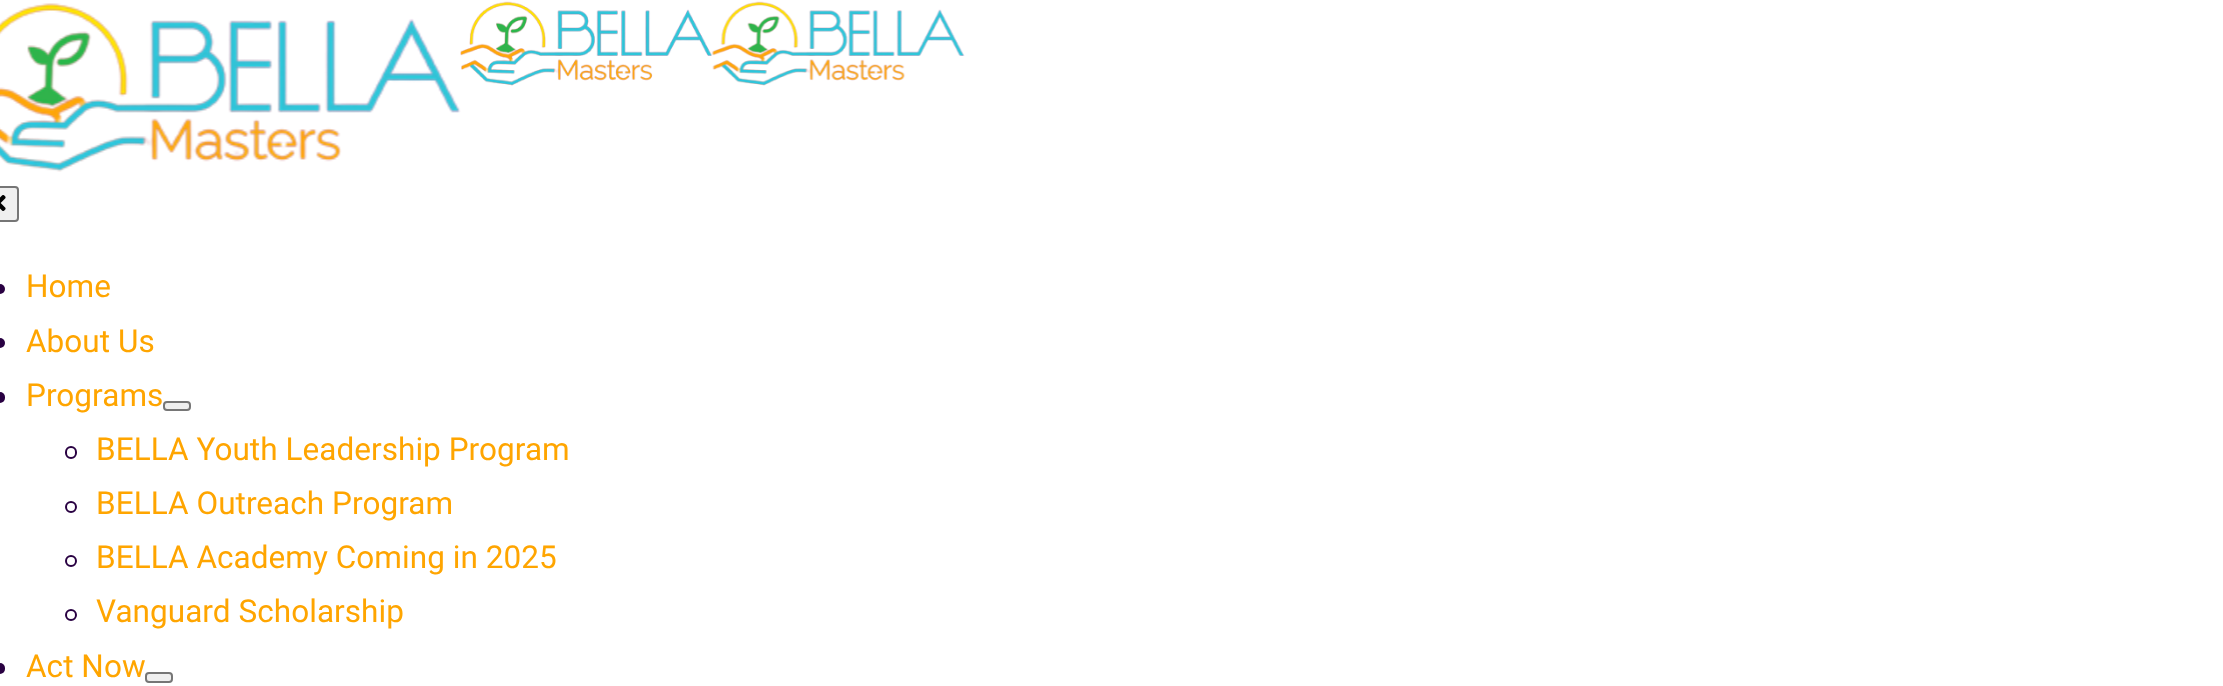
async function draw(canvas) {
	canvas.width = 2223;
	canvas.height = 686;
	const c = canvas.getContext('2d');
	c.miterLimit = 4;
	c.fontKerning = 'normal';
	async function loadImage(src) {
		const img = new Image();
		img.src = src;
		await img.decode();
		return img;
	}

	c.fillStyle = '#fff';
	c.fillRect(0, 0, 2223, 686);
	c.drawImage(await loadImage('img1.png'), 0, 3, 461, 169);
	c.drawImage(await loadImage('img2.png'), 460, 1, 252, 85);
	c.drawImage(await loadImage('img3.png'), 711, 1, 254, 85);
	c.fillStyle = '#efefef';
	c.beginPath();
	c.roundRect(-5, 187, 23, 34, 3);
	c.fill();
	c.strokeStyle = '#767676';
	c.lineWidth = 2;
	c.stroke();
	c.drawImage(await loadImage('img4.png'), 0, 195, 6, 16);
	c.fillStyle = '#290142';
	c.beginPath();
	c.arc(0, 289, 5, 0, 2 * Math.PI);
	c.fill();
	c.letterSpacing = '0.05px';
	c.font = '31.5px Roboto';
	c.fillStyle = '#ffa500';
	c.fillText('Home', 26, 297);
	c.fillStyle = '#290142';
	c.beginPath();
	c.arc(0, 343, 5, 0, 2 * Math.PI);
	c.fill();
	c.fillStyle = '#ffa500';
	c.fillText('About Us', 26, 352);
	c.fillStyle = '#290142';
	c.beginPath();
	c.roundRect(-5, 392, 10, 11, 5);
	c.fill();
	c.fillStyle = '#ffa500';
	c.fillText('Programs', 26, 406);
	c.fillStyle = '#efefef';
	c.beginPath();
	c.roundRect(164, 402, 26, 8, 3);
	c.fill();
	c.stroke();
	c.beginPath();
	c.roundRect(66, 447, 10, 11, 5);
	c.strokeStyle = '#290142';
	c.stroke();
	c.fillStyle = '#ffa500';
	c.fillText('BELLA Youth Leadership Program', 96, 460);
	c.beginPath();
	c.arc(71, 507, 5, 0, 2 * Math.PI);
	c.stroke();
	c.fillText('BELLA Outreach Program', 96, 514);
	c.beginPath();
	c.arc(71, 561, 5, 0, 2 * Math.PI);
	c.stroke();
	c.fillText('BELLA Academy Coming in 2025', 96, 568);
	c.beginPath();
	c.arc(71, 615, 5, 0, 2 * Math.PI);
	c.stroke();
	c.fillText('Vanguard Scholarship', 96, 622);
	c.fillStyle = '#290142';
	c.beginPath();
	c.roundRect(-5, 663, 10, 11, 5);
	c.fill();
	c.fillStyle = '#ffa500';
	c.fillText('Act Now', 26, 677);
	c.fillStyle = '#efefef';
	c.beginPath();
	c.roundRect(146, 673, 26, 9, 3);
	c.fill();
	c.strokeStyle = '#767676';
	c.stroke();
}

draw(document.querySelector('canvas'));
